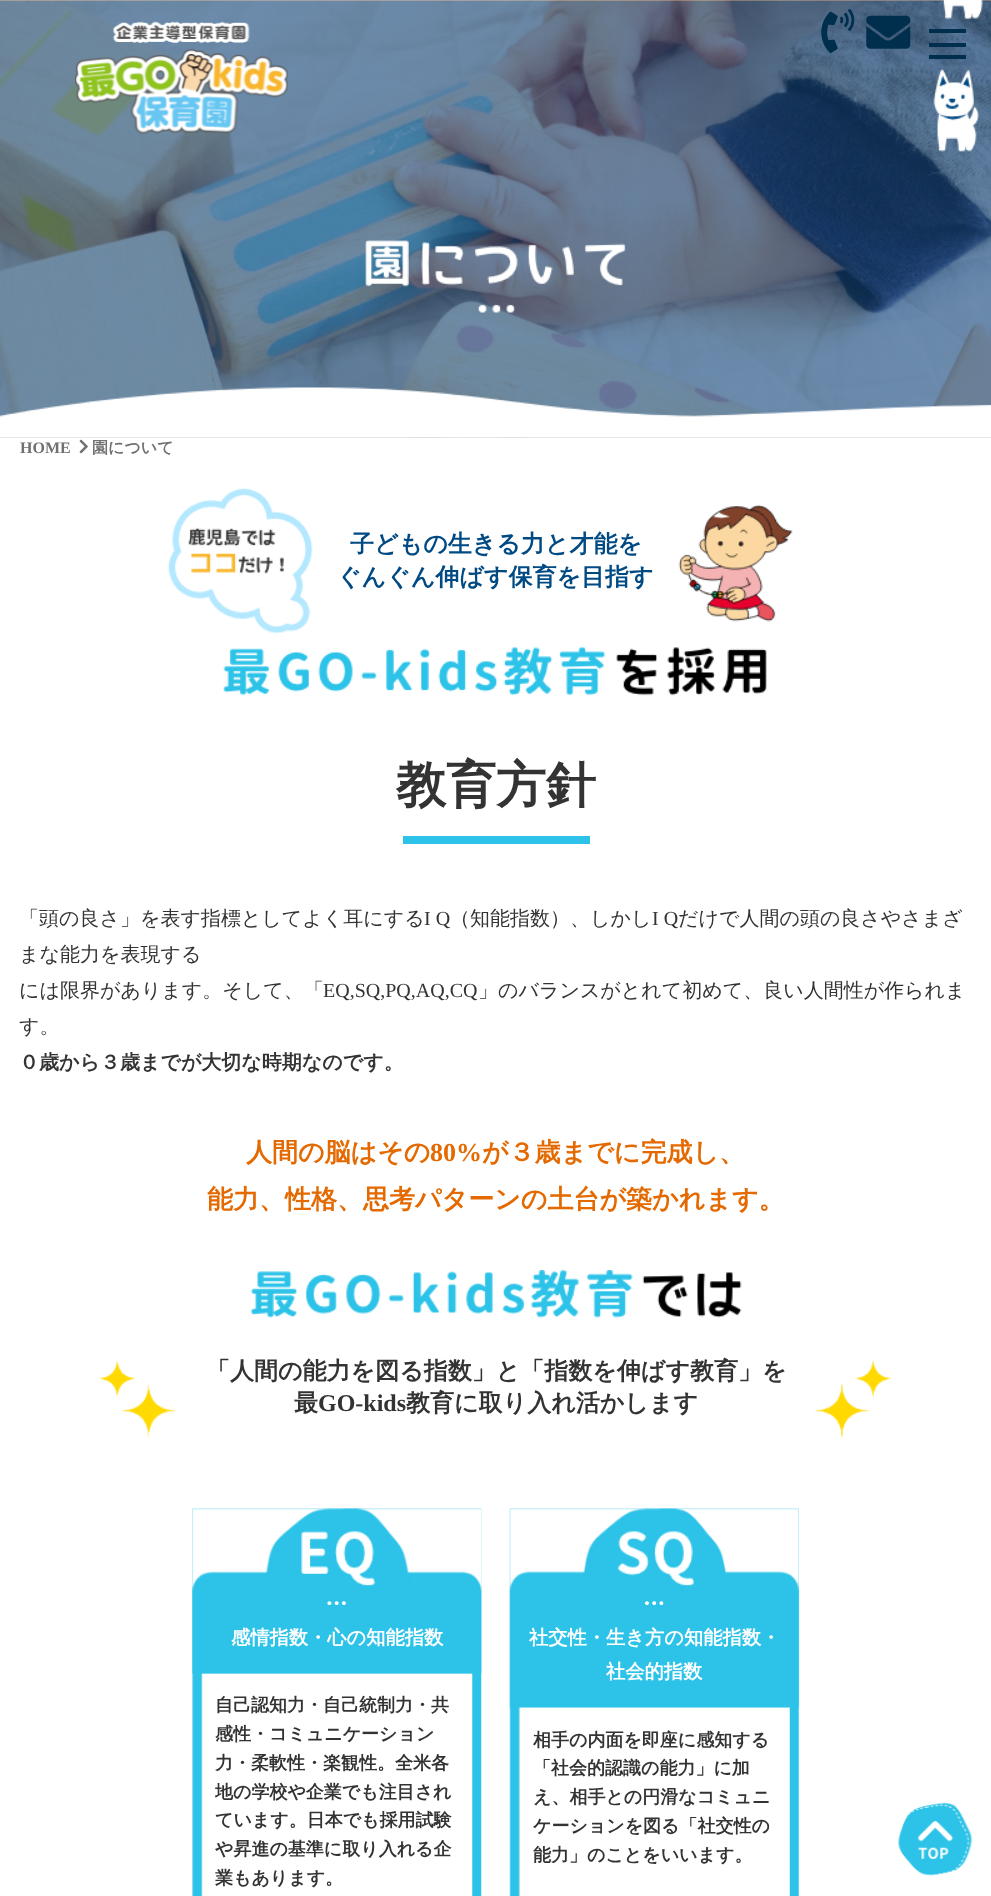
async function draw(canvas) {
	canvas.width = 991;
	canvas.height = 1896;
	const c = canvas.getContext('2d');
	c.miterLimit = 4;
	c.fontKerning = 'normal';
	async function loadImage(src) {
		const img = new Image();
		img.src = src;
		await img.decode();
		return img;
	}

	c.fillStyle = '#fff';
	c.fillRect(0, 0, 991, 1896);
	c.drawImage(await loadImage('img6.png'), 0, 0, 991, 438);
	c.drawImage(await loadImage('img1.png'), 943, 0, 40, 19);
	c.drawImage(await loadImage('img2.png'), 75, 21, 213, 113);
	c.drawImage(await loadImage('img3.png'), 821, 9, 34, 44);
	c.drawImage(await loadImage('img4.png'), 866, 15, 45, 34);
	for (const [x, y, w, h, color] of [
		[929, 29, 37, 4, '#002f4e'],
		[929, 43, 37, 4, '#002f4e'],
		[929, 55, 37, 4, '#002f4e'],
	]) {
		c.fillStyle = color;
		c.fillRect(x, y, w, h);
	}
	c.drawImage(await loadImage('img5.png'), 933, 68, 46, 84);
	c.drawImage(await loadImage('img7.png'), 365, 240, 261, 73);
	c.drawImage(await loadImage('img8.png'), 0, 387, 991, 51);
	c.font = 'bold 16px Liberation Serif';
	c.fillStyle = '#707070';
	c.fillText('HOME', 20, 453);
	c.drawImage(await loadImage('img9.png'), 79, 439, 9, 15);
	c.font = 'bold 16px WenQuanYi Zen Hei';
	c.fillText('園について', 92, 453);
	c.drawImage(await loadImage('img10.png'), 168, 488, 145, 146);
	c.font = 'bold 24px WenQuanYi Zen Hei';
	c.fillStyle = '#004a84';
	c.fillText('子どもの生きる力と才能を', 350, 552);
	c.drawImage(await loadImage('img11.png'), 678, 504, 115, 118);
	c.fillText('ぐんぐん伸ばす保育を目指す', 337, 585);
	c.drawImage(await loadImage('img12.png'), 223, 647, 544, 49);
	c.font = 'bold 50px WenQuanYi Zen Hei';
	c.fillStyle = '#333';
	c.fillText('教育方針', 396, 802);
	c.fillStyle = '#2dc3e8';
	c.fillRect(403, 836, 187, 8);
	c.font = '500 20px WenQuanYi Zen Hei';
	c.fillStyle = '#333';
	c.fillText('「頭の良さ」を表す指標としてよく耳にする', 19, 925);
	c.font = '20px Liberation Serif';
	c.fillText('I Q', 424, 925);
	c.font = '500 20px WenQuanYi Zen Hei';
	c.fillText('（知能指数）、しかし', 450, 925);
	c.font = '20px Liberation Serif';
	c.fillText('I Q', 652, 925);
	c.font = '500 20px WenQuanYi Zen Hei';
	for (const [text, x, y] of [
		['だけで人間の頭の良さやさまざ', 678, 925],
		['まな能力を表現する', 19, 961],
		['には限界があります。そして、「', 19, 997],
	]) {
		c.fillText(text, x, y);
	}
	c.font = '20px Liberation Serif';
	c.fillText('EQ,SQ,PQ,AQ,CQ', 323, 997);
	c.font = '500 20px WenQuanYi Zen Hei';
	c.fillText('」のバランスがとれて初めて、良い人間性が作られま', 478, 997);
	c.fillText('す。', 19, 1033);
	c.font = 'bold 20px WenQuanYi Zen Hei';
	c.fillText('０歳から３歳までが大切な時期なのです。', 19, 1069);
	c.font = 'bold 26px WenQuanYi Zen Hei';
	c.fillStyle = '#e46900';
	c.fillText('人間の脳はその', 246, 1161);
	c.font = 'bold 26px Liberation Serif';
	c.fillText('80%', 430, 1161);
	c.font = 'bold 26px WenQuanYi Zen Hei';
	c.fillText('が３歳までに完成し、', 482, 1161);
	c.fillText('能力、性格、思考パターンの土台が築かれます。', 207, 1208);
	c.drawImage(await loadImage('img13.png'), 251, 1270, 491, 48);
	c.drawImage(await loadImage('img14.png'), 97, 1359, 81, 81);
	c.font = 'bold 24px WenQuanYi Zen Hei';
	c.fillStyle = '#333';
	c.fillText('「人間の能力を図る指数」と「指数を伸ばす教育」を', 206, 1379);
	c.fillText('最', 294, 1411);
	c.font = 'bold 24px Liberation Serif';
	c.fillText('GO-kids', 318, 1411);
	c.font = 'bold 24px WenQuanYi Zen Hei';
	c.fillText('教育に取り入れ活かします', 406, 1411);
	c.drawImage(await loadImage('img15.png'), 813, 1358, 80, 82);
	c.drawImage(await loadImage('img16.png'), 192, 1508, 290, 388);
	c.drawImage(await loadImage('img17.png'), 192, 1508, 290, 166);
	c.drawImage(await loadImage('img18.png'), 301, 1531, 75, 55);
	c.drawImage(await loadImage('img19.png'), 327, 1601, 20, 4);
	c.font = 'bold 19.25px WenQuanYi Zen Hei';
	c.fillStyle = '#fff';
	c.fillText('感情指数・心の知能指数', 231, 1644);
	c.font = 'bold 18px WenQuanYi Zen Hei';
	c.fillStyle = '#333';
	for (const [text, x, y] of [
		['自己認知力・自己統制力・共', 215, 1711],
		['感性・コミュニケーション', 215, 1740],
		['力・柔軟性・楽観性。全米各', 215, 1769],
		['地の学校や企業でも注目され', 215, 1798],
		['ています。日本でも採用試験', 215, 1826],
		['や昇進の基準に取り入れる企', 215, 1855],
		['業もあります。', 215, 1884],
	]) {
		c.fillText(text, x, y);
	}
	c.drawImage(await loadImage('img20.png'), 509, 1508, 290, 388);
	c.drawImage(await loadImage('img21.png'), 509, 1508, 291, 200);
	c.drawImage(await loadImage('img22.png'), 617, 1531, 77, 55);
	c.drawImage(await loadImage('img23.png'), 645, 1601, 19, 4);
	c.font = 'bold 19.25px WenQuanYi Zen Hei';
	c.fillStyle = '#fff';
	c.fillText('社交性・生き方の知能指数・', 529, 1644);
	c.fillText('社会的指数', 606, 1678);
	c.font = 'bold 18px WenQuanYi Zen Hei';
	c.fillStyle = '#333';
	for (const [text, x, y] of [
		['相手の内面を即座に感知する', 533, 1746],
		['「社会的認識の能力」に加', 533, 1774],
		['え、相手との円滑なコミュニ', 533, 1803],
		['ケーションを図る「社交性の', 533, 1832],
		['能力」のことをいいます。', 533, 1861],
	]) {
		c.fillText(text, x, y);
	}
	c.drawImage(await loadImage('img24.png'), 898, 1802, 75, 74);
}

draw(document.querySelector('canvas'));
